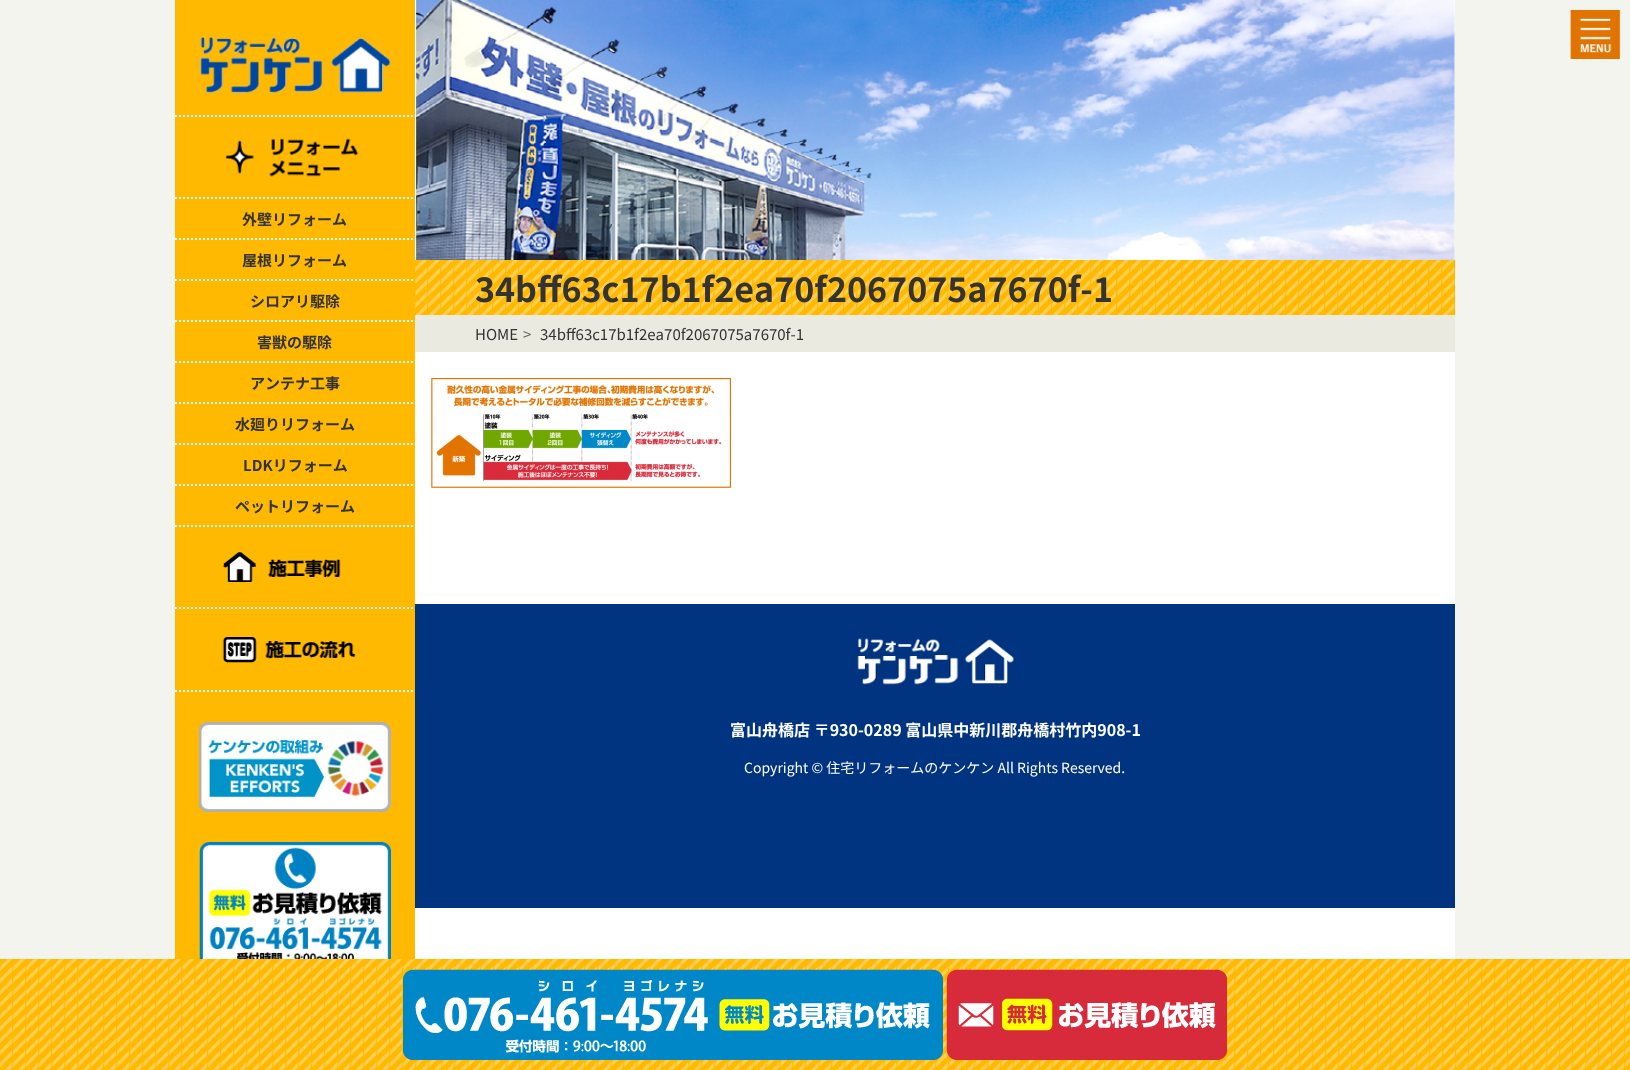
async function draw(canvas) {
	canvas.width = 1630;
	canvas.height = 1070;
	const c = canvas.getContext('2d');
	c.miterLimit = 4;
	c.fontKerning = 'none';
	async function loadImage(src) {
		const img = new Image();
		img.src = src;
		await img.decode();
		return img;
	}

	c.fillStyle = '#f4f4ef';
	c.fillRect(0, 0, 1630, 1070);
	c.fillStyle = '#ffb900';
	c.fillRect(175, 0, 240, 959);
	c.drawImage(await loadImage('img1.png'), 200, 37, 191, 56);
	c.beginPath();
	c.moveTo(175, 116);
	c.lineTo(415, 116);
	c.strokeStyle = '#fff';
	c.lineWidth = 2;
	c.setLineDash([2, 2]);
	c.stroke();
	c.drawImage(await loadImage('img2.png'), 225, 138, 134, 39);
	c.beginPath();
	c.moveTo(175, 198);
	c.lineTo(415, 198);
	c.stroke();
	c.font = 'bold 15px Noto Sans JP';
	c.fillStyle = '#333';
	c.fillText('外壁リフォーム', 242, 225);
	c.beginPath();
	c.moveTo(175, 239);
	c.lineTo(415, 239);
	c.stroke();
	c.fillText('屋根リフォーム', 242, 266);
	c.beginPath();
	c.moveTo(175, 280);
	c.lineTo(415, 280);
	c.stroke();
	c.fillText('シロアリ駆除', 250, 307);
	c.beginPath();
	c.moveTo(175, 321);
	c.lineTo(415, 321);
	c.stroke();
	c.fillText('害獣の駆除', 257, 348);
	c.beginPath();
	c.moveTo(175, 362);
	c.lineTo(415, 362);
	c.stroke();
	c.fillText('アンテナ工事', 250, 389);
	c.beginPath();
	c.moveTo(175, 403);
	c.lineTo(415, 403);
	c.stroke();
	c.fillText('水廻りリフォーム', 235, 430);
	c.beginPath();
	c.moveTo(175, 444);
	c.lineTo(415, 444);
	c.stroke();
	c.fillText('LDKリフォーム', 243, 471);
	c.beginPath();
	c.moveTo(175, 485);
	c.lineTo(415, 485);
	c.stroke();
	c.fillText('ペットリフォーム', 235, 512);
	c.beginPath();
	c.moveTo(175, 526);
	c.lineTo(415, 526);
	c.stroke();
	c.drawImage(await loadImage('img3.png'), 222, 552, 119, 30);
	c.beginPath();
	c.moveTo(175, 608);
	c.lineTo(415, 608);
	c.stroke();
	c.beginPath();
	c.moveTo(175, 691);
	c.lineTo(415, 691);
	c.stroke();
	c.drawImage(await loadImage('img4.png'), 222, 637, 134, 26);
	c.drawImage(await loadImage('img5.png'), 199, 722, 192, 90);
	c.drawImage(await loadImage('img6.png'), 199, 842, 192, 117);
	c.fillStyle = '#fff';
	c.fillRect(415, 0, 1040, 959);
	c.drawImage(await loadImage('img7.png'), 1570, 10, 50, 49);
	c.drawImage(await loadImage('img8.png'), 416, 0, 1039, 260);
	c.fillStyle = '#ffb900';
	c.fillRect(415, 260, 1040, 55);
	c.drawImage(await loadImage('img9.png'), 415, 260, 1040, 55);
	c.font = 'bold 34px Noto Sans JP';
	c.fillStyle = '#333';
	c.fillText('34bff63c17b1f2ea70f2067075a7670f-1', 475, 302);
	c.fillStyle = '#eaeae0';
	c.fillRect(415, 315, 1040, 37);
	c.font = '15px Noto Sans JP';
	c.fillStyle = '#333';
	c.fillText('HOME', 475, 340);
	c.fillStyle = '#666';
	c.fillText('>', 523, 340);
	c.fillStyle = '#333';
	c.fillText('34bff63c17b1f2ea70f2067075a7670f-1', 540, 340);
	c.drawImage(await loadImage('img10.png'), 431, 378, 300, 110);
	c.fillStyle = '#003380';
	c.fillRect(415, 604, 1040, 304);
	c.drawImage(await loadImage('img11.png'), 857, 638, 157, 47);
	c.font = 'bold 16px Noto Sans JP';
	c.fillStyle = '#fff';
	c.fillText('富山舟橋店 〒930-0289 富山県中新川郡舟橋村竹内908-1', 730, 736);
	c.font = '14px Noto Sans JP';
	c.fillText('Copyright © 住宅リフォームのケンケン All Rights Reserved.', 744, 773);
	c.fillStyle = '#ffb900';
	c.fillRect(0, 959, 1630, 111);
	c.drawImage(await loadImage('img12.png'), 0, 959, 1630, 111);
	c.drawImage(await loadImage('img13.png'), 403, 969, 540, 91);
	c.drawImage(await loadImage('img14.png'), 946, 969, 281, 91);
}

draw(document.querySelector('canvas'));
